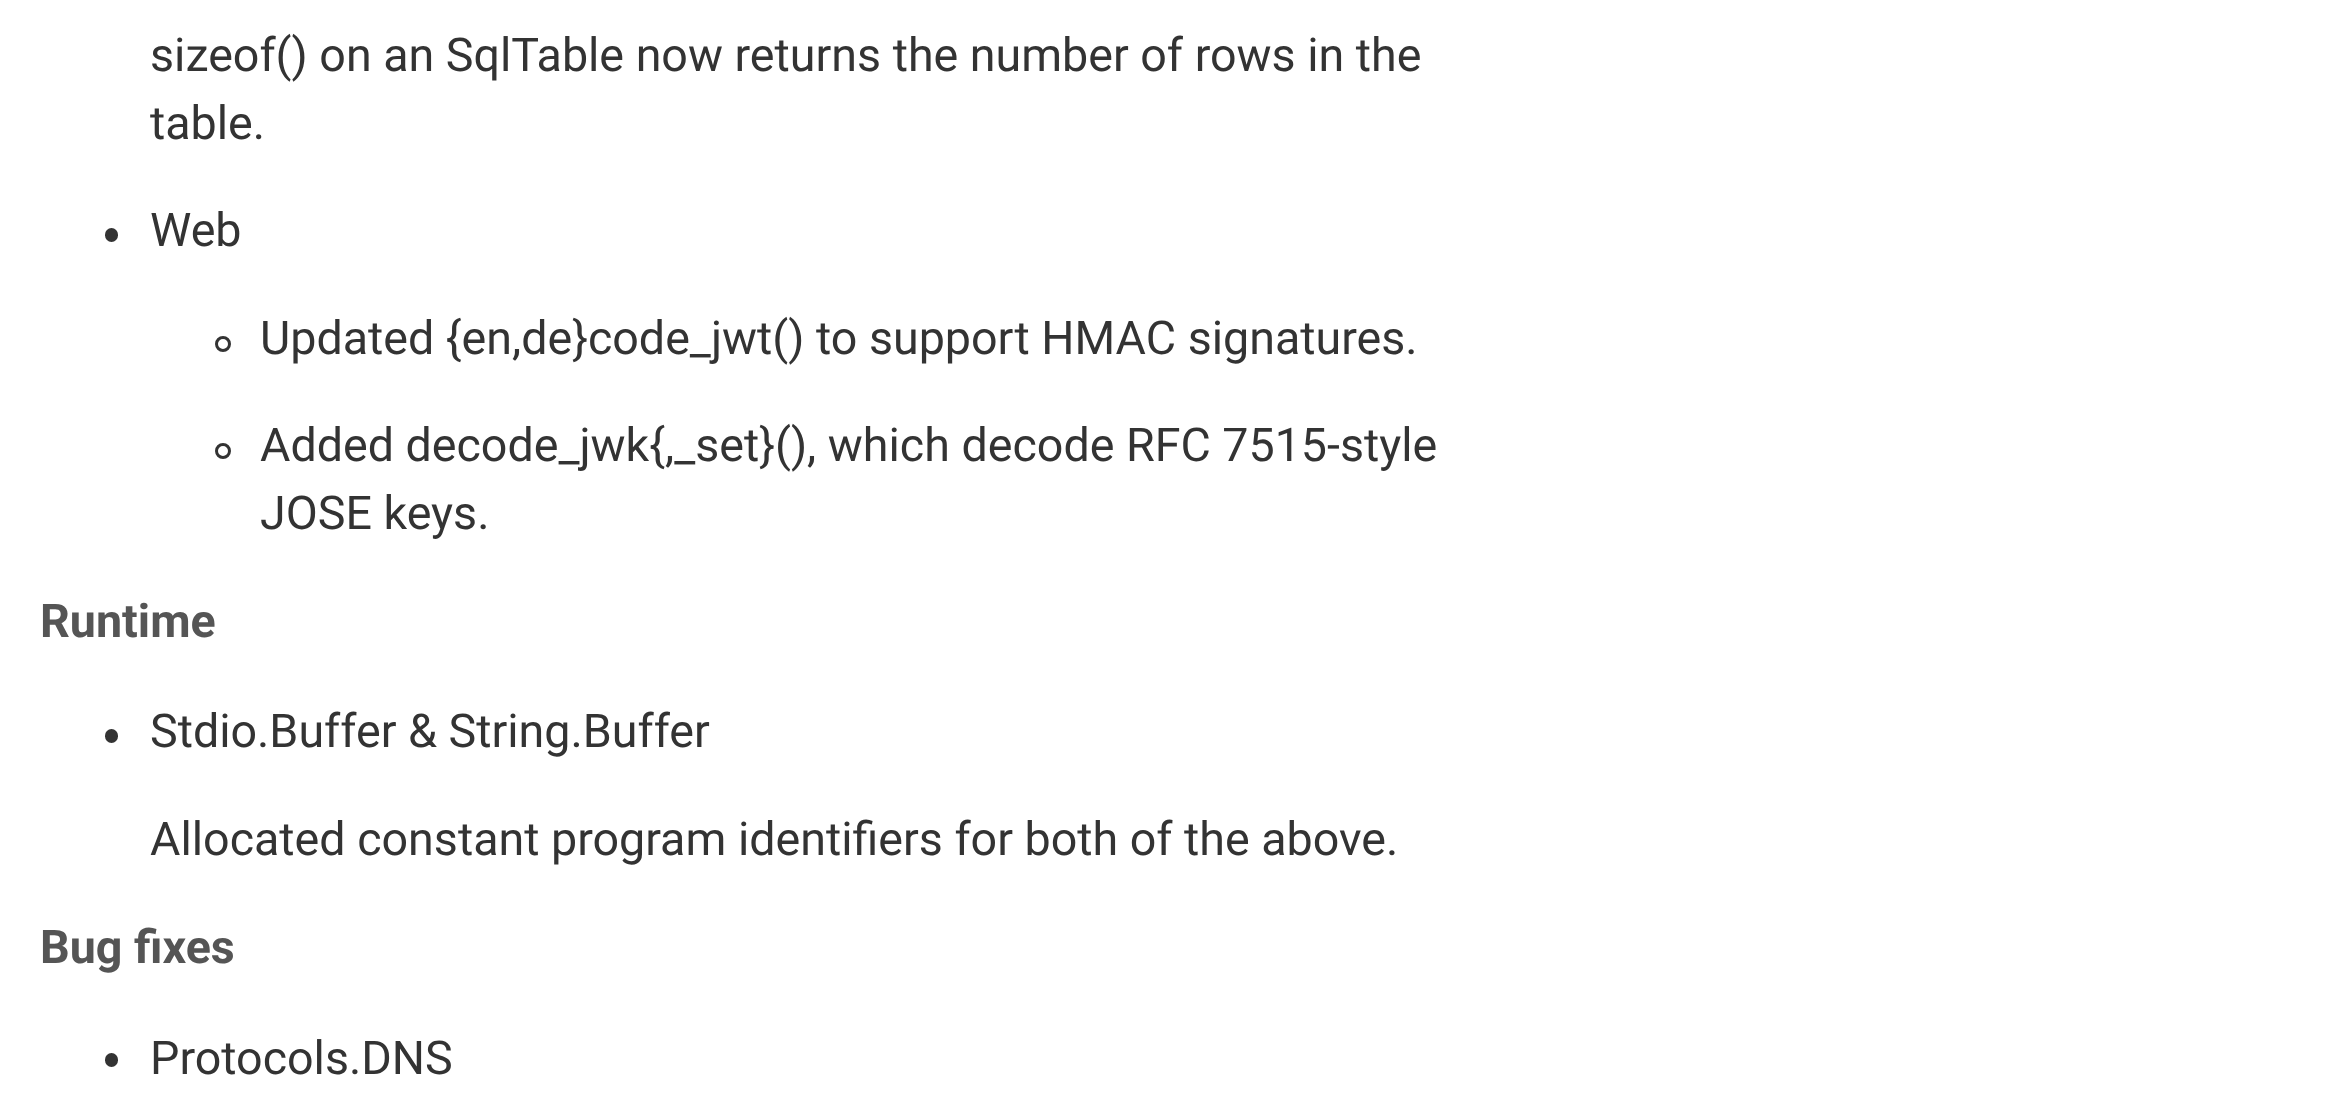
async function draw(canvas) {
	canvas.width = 2329;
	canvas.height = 1106;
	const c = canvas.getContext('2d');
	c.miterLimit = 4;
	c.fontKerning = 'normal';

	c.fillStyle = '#fff';
	c.fillRect(0, 0, 2329, 1106);
	c.font = '46.6px Roboto';
	c.fillStyle = '#333';
	c.fillText('sizeof() on an SqlTable now returns the number of rows in the', 150, 71);
	c.fillText('table.', 150, 139);
	c.beginPath();
	c.roundRect(105, 228, 13, 14, 6.5);
	c.fill();
	c.fillText('Web', 150, 246);
	c.beginPath();
	c.arc(223, 344, 6.5, 0, 2 * Math.PI);
	c.strokeStyle = '#333';
	c.lineWidth = 3;
	c.stroke();
	c.fillText('Updated {en,de}code_jwt() to support HMAC signatures.', 260, 354);
	c.beginPath();
	c.arc(223, 451, 6.5, 0, 2 * Math.PI);
	c.stroke();
	c.fillText('Added decode_jwk{,_set}(), which decode RFC 7515-style', 260, 461);
	c.fillText('JOSE keys.', 260, 529);
	c.font = 'bold 46.6px Roboto';
	c.fillStyle = '#555';
	c.fillText('Runtime', 40, 637);
	c.fillStyle = '#333';
	c.beginPath();
	c.roundRect(105, 729, 13, 14, 6.5);
	c.fill();
	c.font = '46.6px Roboto';
	c.fillText('Stdio.Buffer & String.Buffer', 150, 747);
	c.fillText('Allocated constant program identifiers for both of the above.', 150, 855);
	c.font = 'bold 46.6px Roboto';
	c.fillStyle = '#555';
	c.fillText('Bug fixes', 40, 963);
	c.fillStyle = '#333';
	c.beginPath();
	c.roundRect(105, 1053, 13, 14, 6.5);
	c.fill();
	c.font = '46.6px Roboto';
	c.fillText('Protocols.DNS', 150, 1074);
}

draw(document.querySelector('canvas'));
